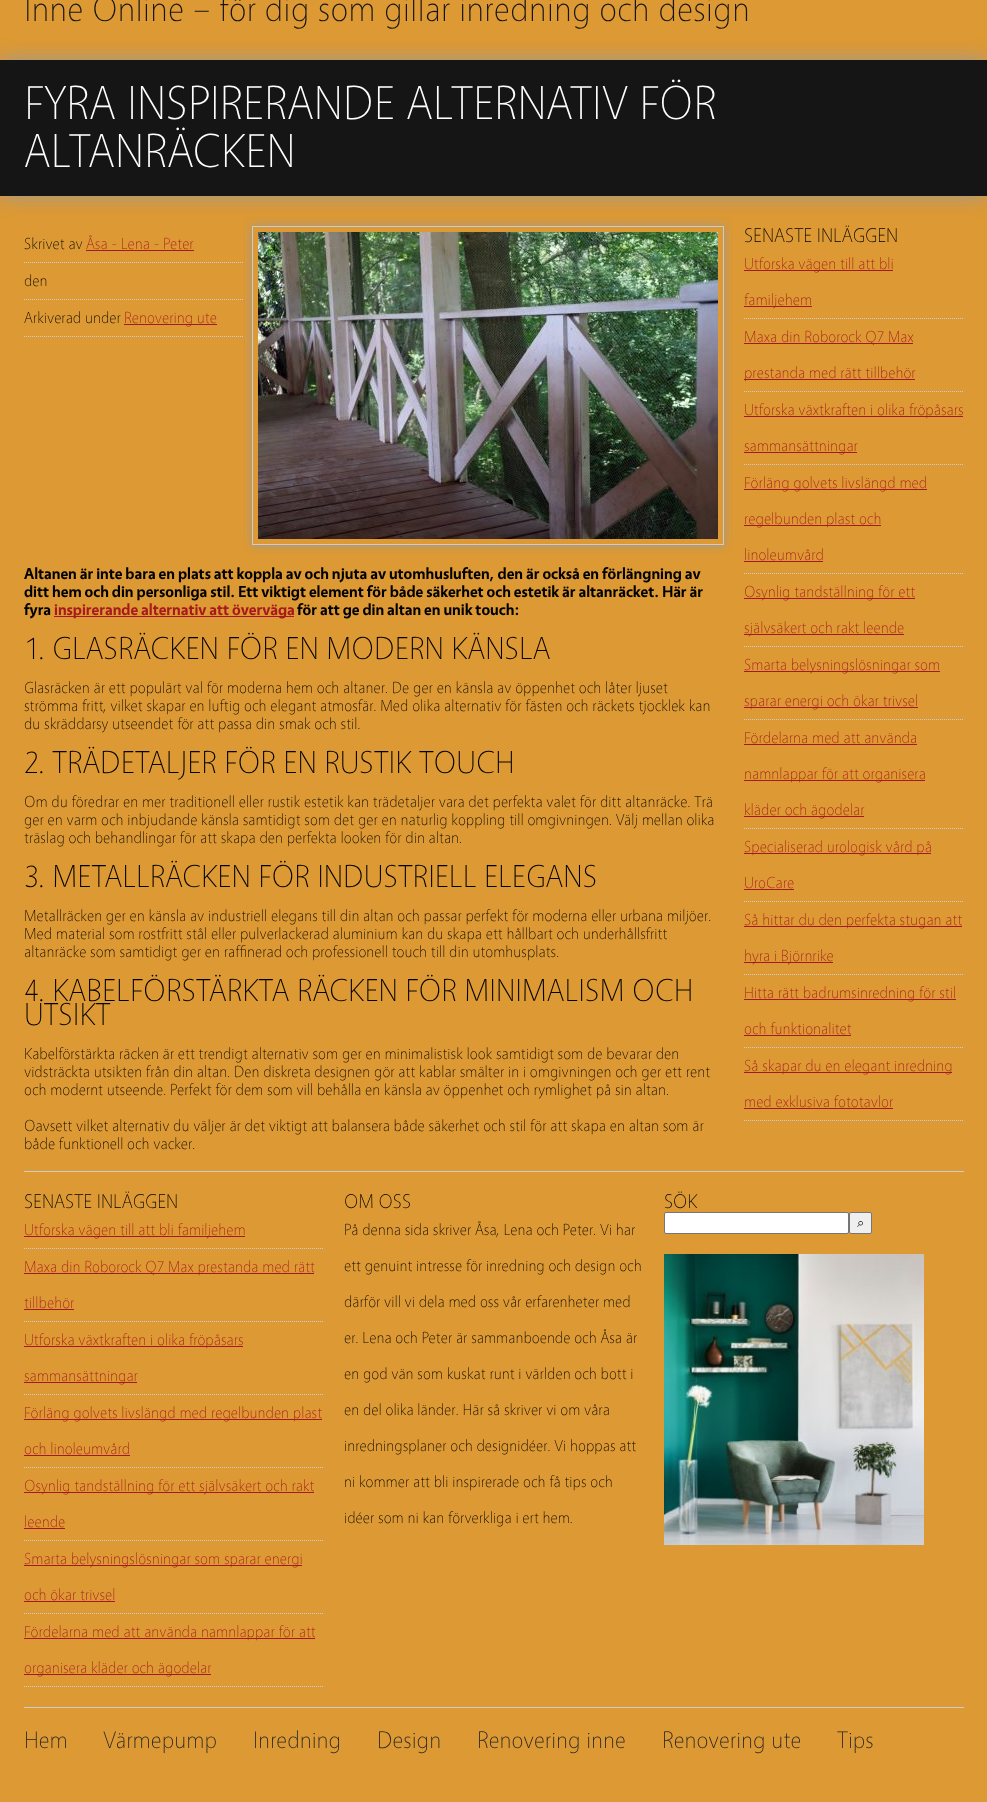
async function draw(canvas) {
	canvas.width = 987;
	canvas.height = 1802;
	const c = canvas.getContext('2d');
	c.miterLimit = 4;
	c.fontKerning = 'normal';
	async function loadImage(src) {
		const img = new Image();
		img.src = src;
		await img.decode();
		return img;
	}

	c.fillStyle = '#d93';
	c.fillRect(0, 0, 987, 1802);
	c.font = '300 36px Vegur';
	c.fillStyle = '#151515';
	c.fillText('Inne Online – för dig som gillar inredning och design', 24, 21);
	c.fillStyle = '#999';
	c.filter = 'blur(10px)';
	c.beginPath();
	c.rect(0, 60, 987, 136);
	c.fill();
	c.filter = 'none';
	c.fillStyle = '#151515';
	c.fillRect(0, 60, 987, 136);
	c.font = '300 48px Vegur';
	c.fillStyle = '#fff';
	c.fillText('FYRA INSPIRERANDE ALTERNATIV FÖR', 24, 119);
	c.fillText('ALTANRÄCKEN', 24, 167);
	c.fillStyle = '#ccc';
	c.fillRect(24, 1171, 940, 1);
	c.save();
	c.beginPath();
	c.moveTo(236, 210);
	c.lineTo(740, 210);
	c.lineTo(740, 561);
	c.lineTo(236, 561);
	c.closePath();
	c.moveTo(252, 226);
	c.lineTo(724, 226);
	c.lineTo(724, 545);
	c.lineTo(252, 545);
	c.closePath();
	c.clip('evenodd');
	c.fillStyle = '#999';
	c.filter = 'blur(5px)';
	c.beginPath();
	c.rect(252, 226, 472, 319);
	c.fill();
	c.filter = 'none';
	c.restore();
	c.beginPath();
	c.moveTo(24, 262.5);
	c.lineTo(244, 262.5);
	c.strokeStyle = '#ccc';
	c.setLineDash([1, 1]);
	c.stroke();
	c.font = '300 16px Vegur';
	c.fillStyle = '#000';
	c.fillText('Skrivet av', 24, 249);
	c.fillStyle = '#a6191f';
	c.fillText('Åsa - Lena - Peter', 86, 249);
	c.fillRect(86, 250, 108, 1);
	c.beginPath();
	c.moveTo(24, 299.5);
	c.lineTo(244, 299.5);
	c.stroke();
	c.fillStyle = '#000';
	c.fillText('den', 24, 286);
	c.beginPath();
	c.moveTo(24, 336.5);
	c.lineTo(244, 336.5);
	c.stroke();
	c.fillText('Arkiverad under', 24, 323);
	c.fillStyle = '#a6191f';
	c.fillRect(124, 324, 93, 1);
	c.fillText('Renovering ute', 124, 323);
	c.setLineDash([]);
	c.strokeRect(252.5, 226.5, 471, 318);
	c.drawImage(await loadImage('img1.png'), 258, 232, 460, 307);
	c.font = 'bold 16px Vegur';
	c.fillStyle = '#000';
	for (const [text, x, y] of [
		['Altanen är inte bara en plats att koppla av och njuta av utomhusluften, den är också en förlängning av', 24, 579],
		['ditt hem och din personliga stil. Ett viktigt element för både säkerhet och estetik är altanräcket. Här är', 24, 597],
		['fyra', 24, 615],
	]) {
		c.fillText(text, x, y);
	}
	c.fillStyle = '#a6191f';
	c.fillRect(54, 616, 240, 1);
	c.fillText('inspirerande alternativ att överväga', 54, 615);
	c.fillStyle = '#000';
	c.fillText('för att ge din altan en unik touch:', 297, 615);
	c.font = '300 32px Vegur';
	c.fillText('1. GLASRÄCKEN FÖR EN MODERN KÄNSLA', 24, 659);
	c.font = '300 16px Vegur';
	for (const [text, x, y] of [
		['Glasräcken är ett populärt val för moderna hem och altaner. De ger en känsla av öppenhet och låter ljuset', 24, 693],
		['strömma fritt, vilket skapar en luftig och elegant atmosfär. Med olika alternativ för fästen och räckets tjocklek kan', 24, 711],
		['du skräddarsy utseendet för att passa din smak och stil.', 24, 729],
	]) {
		c.fillText(text, x, y);
	}
	c.font = '300 32px Vegur';
	c.fillText('2. TRÄDETALJER FÖR EN RUSTIK TOUCH', 24, 773);
	c.font = '300 16px Vegur';
	for (const [text, x, y] of [
		['Om du föredrar en mer traditionell eller rustik estetik kan trädetaljer vara det perfekta valet för ditt altanräcke. Trä', 24, 807],
		['ger en varm och inbjudande känsla samtidigt som det ger en naturlig koppling till omgivningen. Välj mellan olika', 24, 825],
		['träslag och behandlingar för att skapa den perfekta looken för din altan.', 24, 843],
	]) {
		c.fillText(text, x, y);
	}
	c.font = '300 32px Vegur';
	c.fillText('3. METALLRÄCKEN FÖR INDUSTRIELL ELEGANS', 24, 887);
	c.font = '300 16px Vegur';
	for (const [text, x, y] of [
		['Metallräcken ger en känsla av industriell elegans till din altan och passar perfekt för moderna eller urbana miljöer.', 24, 921],
		['Med material som rostfritt stål eller pulverlackerad aluminium kan du skapa ett hållbart och underhållsfritt', 24, 939],
		['altanräcke som samtidigt ger en raffinerad och professionell touch till din utomhusplats.', 24, 957],
	]) {
		c.fillText(text, x, y);
	}
	c.font = '300 32px Vegur';
	c.fillText('4. KABELFÖRSTÄRKTA RÄCKEN FÖR MINIMALISM OCH', 24, 1001);
	c.fillText('UTSIKT', 24, 1025);
	c.font = '300 16px Vegur';
	for (const [text, x, y] of [
		['Kabelförstärkta räcken är ett trendigt alternativ som ger en minimalistisk look samtidigt som de bevarar den', 24, 1059],
		['vidsträckta utsikten från din altan. Den diskreta designen gör att kablar smälter in i omgivningen och ger ett rent', 24, 1077],
		['och modernt utseende. Perfekt för dem som vill behålla en känsla av öppenhet och rymlighet på sin altan.', 24, 1095],
		['Oavsett vilket alternativ du väljer är det viktigt att balansera både säkerhet och stil för att skapa en altan som är', 24, 1131],
		['både funktionell och vacker.', 24, 1149],
	]) {
		c.fillText(text, x, y);
	}
	c.font = '300 20px Vegur';
	c.fillText('SENASTE INLÄGGEN', 744, 242);
	c.beginPath();
	c.moveTo(744, 318.5);
	c.lineTo(964, 318.5);
	c.setLineDash([1, 1]);
	c.stroke();
	c.fillStyle = '#a6191f';
	c.fillRect(744, 270, 149, 1);
	c.font = '300 16px Vegur';
	c.fillText('Utforska vägen till att bli', 744, 269);
	c.fillRect(744, 306, 68, 1);
	c.fillText('familjehem', 744, 305);
	c.beginPath();
	c.moveTo(744, 391.5);
	c.lineTo(964, 391.5);
	c.stroke();
	c.fillRect(744, 343, 169, 1);
	c.fillText('Maxa din Roborock Q7 Max', 744, 342);
	c.fillRect(744, 379, 171, 1);
	c.fillText('prestanda med rätt tillbehör', 744, 378);
	c.beginPath();
	c.moveTo(744, 464.5);
	c.lineTo(964, 464.5);
	c.stroke();
	c.fillRect(744, 416, 219, 1);
	c.fillText('Utforska växtkraften i olika fröpåsars', 744, 415);
	c.fillRect(744, 452, 113, 1);
	c.fillText('sammansättningar', 744, 451);
	c.beginPath();
	c.moveTo(744, 573.5);
	c.lineTo(964, 573.5);
	c.stroke();
	c.fillRect(744, 489, 183, 1);
	c.fillText('Förläng golvets livslängd med', 744, 488);
	c.fillRect(744, 525, 137, 1);
	c.fillText('regelbunden plast och', 744, 524);
	c.fillText('linoleumvård', 744, 560);
	c.fillRect(744, 561, 79, 1);
	c.beginPath();
	c.moveTo(744, 646.5);
	c.lineTo(964, 646.5);
	c.stroke();
	c.fillRect(744, 598, 171, 1);
	c.fillText('Osynlig tandställning för ett', 744, 597);
	c.fillRect(744, 634, 160, 1);
	c.fillText('självsäkert och rakt leende', 744, 633);
	c.beginPath();
	c.moveTo(744, 719.5);
	c.lineTo(964, 719.5);
	c.stroke();
	c.fillRect(744, 671, 196, 1);
	c.fillText('Smarta belysningslösningar som', 744, 670);
	c.fillRect(744, 707, 174, 1);
	c.fillText('sparar energi och ökar trivsel', 744, 706);
	c.beginPath();
	c.moveTo(744, 828.5);
	c.lineTo(964, 828.5);
	c.stroke();
	c.fillText('Fördelarna med att använda', 744, 743);
	c.fillRect(744, 744, 173, 1);
	c.fillRect(744, 780, 181, 1);
	c.fillText('namnlappar för att organisera', 744, 779);
	c.fillRect(744, 816, 120, 1);
	c.fillText('kläder och ägodelar', 744, 815);
	c.beginPath();
	c.moveTo(744, 901.5);
	c.lineTo(964, 901.5);
	c.stroke();
	c.fillRect(744, 853, 187, 1);
	c.fillText('Specialiserad urologisk vård på', 744, 852);
	c.fillText('UroCare', 744, 888);
	c.fillRect(744, 889, 50, 1);
	c.beginPath();
	c.moveTo(744, 974.5);
	c.lineTo(964, 974.5);
	c.stroke();
	c.fillRect(744, 926, 218, 1);
	c.fillText('Så hittar du den perfekta stugan att', 744, 925);
	c.fillRect(744, 962, 89, 1);
	c.fillText('hyra i Björnrike', 744, 961);
	c.beginPath();
	c.moveTo(744, 1047.5);
	c.lineTo(964, 1047.5);
	c.stroke();
	c.fillRect(744, 999, 212, 1);
	c.fillText('Hitta rätt badrumsinredning för stil', 744, 998);
	c.fillText('och funktionalitet', 744, 1034);
	c.fillRect(744, 1035, 107, 1);
	c.beginPath();
	c.moveTo(744, 1120.5);
	c.lineTo(964, 1120.5);
	c.stroke();
	c.fillRect(744, 1072, 208, 1);
	c.fillText('Så skapar du en elegant inredning', 744, 1071);
	c.fillText('med exklusiva fototavlor', 744, 1107);
	c.fillRect(744, 1108, 149, 1);
	c.fillStyle = '#ccc';
	c.fillRect(24, 1707, 940, 1);
	c.font = '300 20px Vegur';
	c.fillStyle = '#000';
	c.fillText('SENASTE INLÄGGEN', 24, 1208);
	c.beginPath();
	c.moveTo(24, 1248.5);
	c.lineTo(324, 1248.5);
	c.stroke();
	c.fillStyle = '#a6191f';
	c.fillRect(24, 1236, 221, 1);
	c.font = '300 16px Vegur';
	c.fillText('Utforska vägen till att bli familjehem', 24, 1235);
	c.beginPath();
	c.moveTo(24, 1321.5);
	c.lineTo(324, 1321.5);
	c.stroke();
	c.fillRect(24, 1273, 290, 1);
	c.fillText('Maxa din Roborock Q7 Max prestanda med rätt', 24, 1272);
	c.fillText('tillbehör', 24, 1308);
	c.fillRect(24, 1309, 50, 1);
	c.beginPath();
	c.moveTo(24, 1394.5);
	c.lineTo(324, 1394.5);
	c.stroke();
	c.fillRect(24, 1346, 219, 1);
	c.fillText('Utforska växtkraften i olika fröpåsars', 24, 1345);
	c.fillRect(24, 1382, 113, 1);
	c.fillText('sammansättningar', 24, 1381);
	c.beginPath();
	c.moveTo(24, 1467.5);
	c.lineTo(324, 1467.5);
	c.stroke();
	c.fillRect(24, 1419, 298, 1);
	c.fillText('Förläng golvets livslängd med regelbunden plast', 24, 1418);
	c.fillText('och linoleumvård', 24, 1454);
	c.fillRect(24, 1455, 106, 1);
	c.beginPath();
	c.moveTo(24, 1540.5);
	c.lineTo(324, 1540.5);
	c.stroke();
	c.fillRect(24, 1492, 290, 1);
	c.fillText('Osynlig tandställning för ett självsäkert och rakt', 24, 1491);
	c.fillText('leende', 24, 1527);
	c.fillRect(24, 1528, 41, 1);
	c.beginPath();
	c.moveTo(24, 1613.5);
	c.lineTo(324, 1613.5);
	c.stroke();
	c.fillRect(24, 1565, 278, 1);
	c.fillText('Smarta belysningslösningar som sparar energi', 24, 1564);
	c.fillText('och ökar trivsel', 24, 1600);
	c.fillRect(24, 1601, 91, 1);
	c.beginPath();
	c.moveTo(24, 1686.5);
	c.lineTo(324, 1686.5);
	c.stroke();
	c.fillRect(24, 1638, 291, 1);
	c.fillText('Fördelarna med att använda namnlappar för att', 24, 1637);
	c.fillRect(24, 1674, 187, 1);
	c.fillText('organisera kläder och ägodelar', 24, 1673);
	c.font = '300 20px Vegur';
	c.fillStyle = '#000';
	c.fillText('OM OSS', 344, 1208);
	c.font = '300 16px Vegur';
	for (const [text, x, y] of [
		['På denna sida skriver Åsa, Lena och Peter. Vi har', 344, 1235],
		['ett genuint intresse för inredning och design och', 344, 1271],
		['därför vill vi dela med oss vår erfarenheter med', 344, 1307],
		['er. Lena och Peter är sammanboende och Åsa är', 344, 1343],
		['en god vän som kuskat runt i världen och bott i', 344, 1379],
		['en del olika länder. Här så skriver vi om våra', 344, 1415],
		['inredningsplaner och designidéer. Vi hoppas att', 344, 1451],
		['ni kommer att bli inspirerade och få tips och', 344, 1487],
		['idéer som ni kan förverkliga i ert hem.', 344, 1523],
	]) {
		c.fillText(text, x, y);
	}
	c.font = '300 20px Vegur';
	c.fillText('SÖK', 664, 1208);
	c.fillStyle = '#fff';
	c.beginPath();
	c.roundRect(664.5, 1212.5, 184, 21, 1.5);
	c.fill();
	c.strokeStyle = '#767676';
	c.setLineDash([]);
	c.stroke();
	c.fillStyle = '#efefef';
	c.beginPath();
	c.roundRect(849.5, 1212.5, 22, 21, 1.5);
	c.fill();
	c.stroke();
	c.font = '13px FreeSerif';
	c.fillStyle = '#000';
	c.fillText('⌕', 857, 1227);
	c.drawImage(await loadImage('img2.png'), 664, 1254, 260, 291);
	c.font = '300 24px Vegur';
	c.fillStyle = '#252525';
	for (const [text, x, y] of [
		['Hem', 24, 1748],
		['Värmepump', 103, 1748],
		['Inredning', 253, 1748],
		['Design', 377, 1748],
		['Renovering inne', 477, 1748],
		['Renovering ute', 662, 1748],
		['Tips', 837, 1748],
	]) {
		c.fillText(text, x, y);
	}
}

draw(document.querySelector('canvas'));
